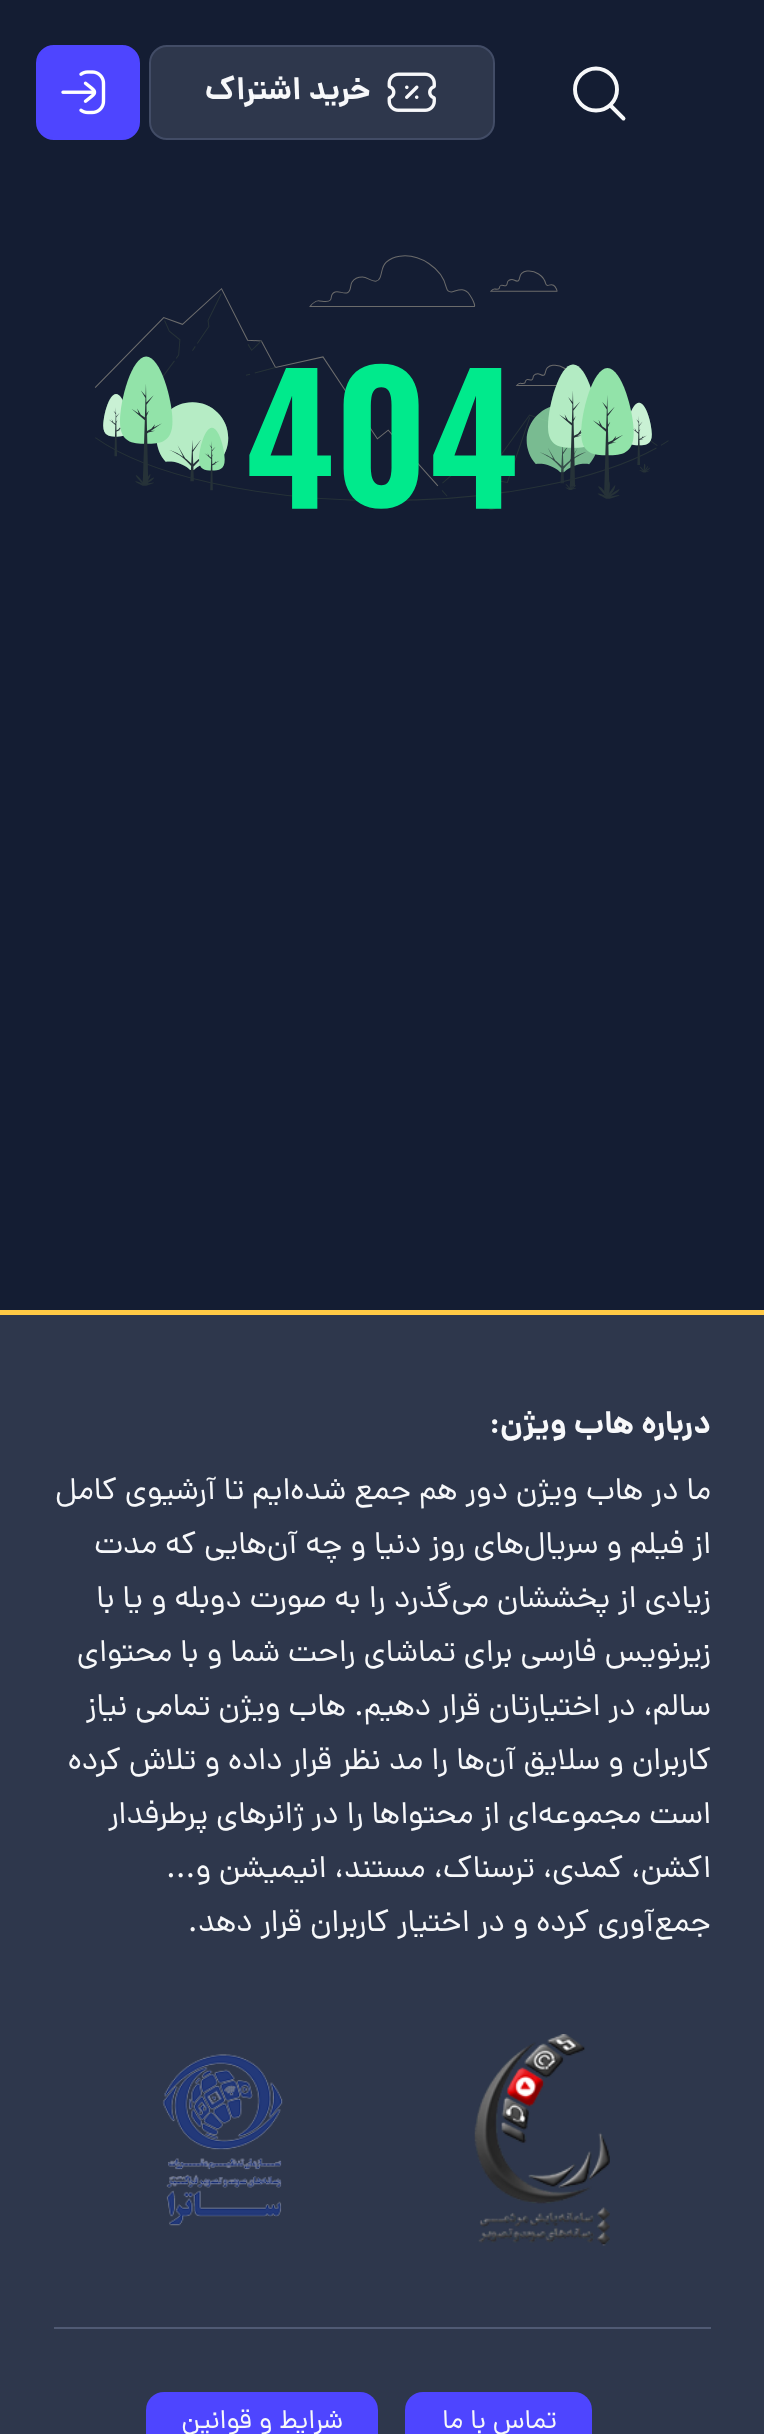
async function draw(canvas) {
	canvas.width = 764;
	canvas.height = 2434;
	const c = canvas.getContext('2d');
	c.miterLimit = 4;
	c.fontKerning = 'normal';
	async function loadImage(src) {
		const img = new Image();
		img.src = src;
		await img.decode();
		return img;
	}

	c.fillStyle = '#141d33';
	c.fillRect(0, 0, 764, 2434);
	c.beginPath();
	c.arc(596, 89.5, 21, 0, 2 * Math.PI);
	c.strokeStyle = '#f7f8fa';
	c.lineWidth = 3.9;
	c.stroke();
	c.beginPath();
	c.moveTo(610.5, 105.5);
	c.lineTo(623.5, 118.5);
	c.lineCap = 'round';
	c.lineJoin = 'round';
	c.stroke();
	c.fillStyle = '#2e374c';
	c.beginPath();
	c.roundRect(150, 46, 344, 93, 17);
	c.fill();
	c.strokeStyle = '#424c66';
	c.lineWidth = 2;
	c.lineJoin = 'miter';
	c.stroke();
	c.drawImage(await loadImage('img1.png'), 387, 72, 49, 40);
	c.direction = 'rtl';
	c.font = 'bold 31.5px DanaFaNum';
	c.fillStyle = '#f7f8fa';
	c.fillText('خرید اشتراک', 371, 99);
	c.fillStyle = '#4e45ff';
	c.beginPath();
	c.roundRect(37, 46, 102, 93, 17);
	c.fill();
	c.strokeStyle = '#4e45ff';
	c.stroke();
	c.drawImage(await loadImage('img2.png'), 61, 70, 45, 45);
	c.drawImage(await loadImage('img3.png'), 94, 255, 575, 255);
	c.fillStyle = '#2e374c';
	c.fillRect(0, 1315, 764, 1119);
	c.fillStyle = '#ffc945';
	c.fillRect(0, 1310, 764, 5);
	c.fillStyle = '#f7f8fa';
	c.fillText('درباره هاب ویژن:', 711, 1433);
	c.font = '31.5px DanaFaNum';
	for (const [text, x, y] of [
		['ما در هاب ویژن دور هم جمع شده‌ایم تا آرشیوی کامل', 711, 1499],
		['از فیلم‌ و سریال‌های روز دنیا و چه آن‌هایی که مدت', 711, 1553],
		['زیادی از پخششان می‌گذرد را به صورت دوبله و یا با', 711, 1607],
		['زیرنویس فارسی برای تماشای راحت شما و با محتوای', 711, 1661],
		['سالم، در اختیارتان قرار دهیم. هاب ویژن تمامی نیاز', 711, 1715],
		['کاربران و سلایق آن‌ها را مد نظر قرار داده و تلاش کرده', 711, 1769],
		['است مجموعه‌ای از محتواها را در ژانرهای پرطرفدار', 711, 1823],
		['اکشن، کمدی، ترسناک، مستند، انیمیشن و...', 711, 1877],
		['جمع‌آوری کرده و در اختیار کاربران قرار دهد.', 711, 1931],
	]) {
		c.fillText(text, x, y);
	}
	c.drawImage(await loadImage('img4.png'), 474, 2034, 136, 212);
	c.drawImage(await loadImage('img5.png'), 162, 2054, 121, 172);
	c.fillStyle = '#505a73';
	c.fillRect(54, 2327, 657, 2);
	c.fillStyle = '#4e45ff';
	c.beginPath();
	c.roundRect(405, 2392, 187, 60, 18);
	c.fill();
	c.font = '27px DanaFaNum';
	c.fillStyle = '#f7f8fa';
	c.fillText('تماس با ما', 557, 2428);
	c.fillStyle = '#4e45ff';
	c.beginPath();
	c.roundRect(146, 2392, 232, 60, 18);
	c.fill();
	c.fillStyle = '#f7f8fa';
	c.fillText('شرایط و قوانین', 343, 2428);
}

draw(document.querySelector('canvas'));
